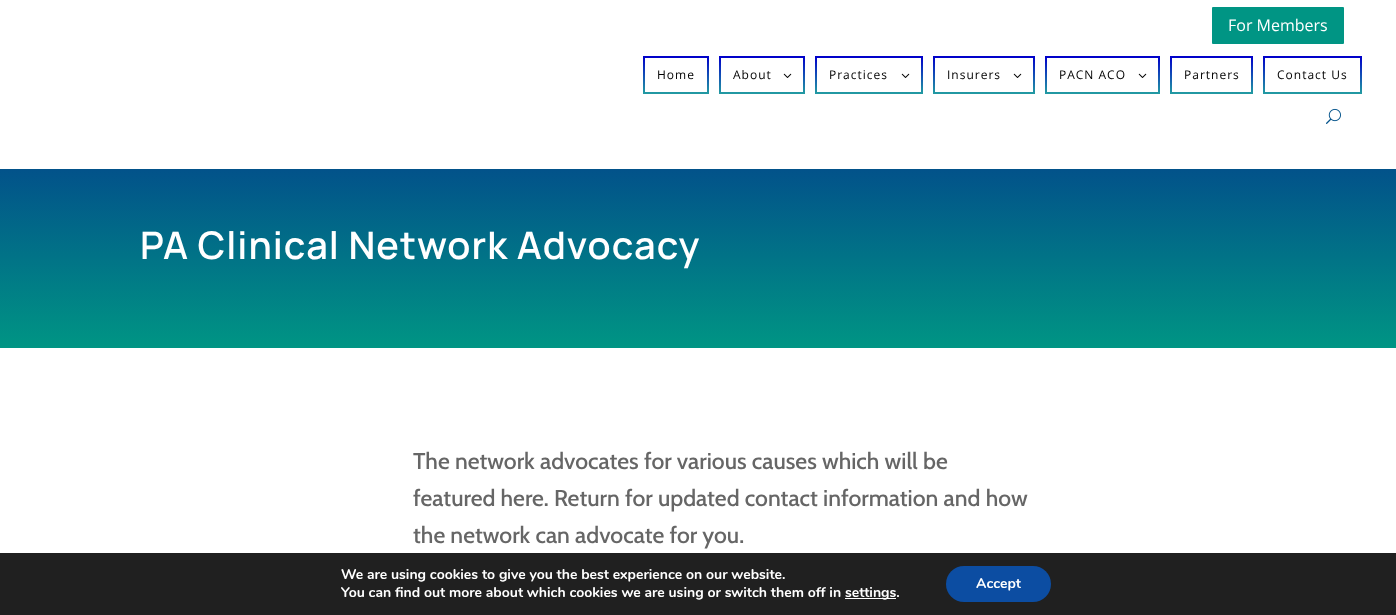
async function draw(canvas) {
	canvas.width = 1396;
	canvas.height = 615;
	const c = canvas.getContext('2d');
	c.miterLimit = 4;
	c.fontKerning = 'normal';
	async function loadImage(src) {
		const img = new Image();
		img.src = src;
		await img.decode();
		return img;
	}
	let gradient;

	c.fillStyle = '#fff';
	c.fillRect(0, 0, 1396, 615);
	c.fillStyle = '#009584';
	c.beginPath();
	c.roundRect(1211, 6, 134, 39, 2);
	c.fill();
	c.strokeStyle = '#fff';
	c.lineWidth = 2;
	c.stroke();
	c.font = '16px Open Sans';
	c.fillStyle = '#fff';
	c.fillText('For Members', 1228, 31);
	c.drawImage(await loadImage('img1.png'), 643, 56, 66, 38);
	c.letterSpacing = '1px';
	c.font = '12px Open Sans';
	c.fillStyle = '#000';
	c.fillText('Home', 657, 79);
	c.drawImage(await loadImage('img2.png'), 719, 56, 86, 38);
	c.fillText('About', 733, 79);
	c.drawImage(await loadImage('img3.png'), 783, 73, 9, 5);
	c.drawImage(await loadImage('img4.png'), 815, 56, 108, 38);
	c.fillText('Practices', 829, 79);
	c.drawImage(await loadImage('img3.png'), 901, 73, 9, 5);
	c.drawImage(await loadImage('img5.png'), 933, 56, 102, 38);
	c.fillText('Insurers', 947, 79);
	c.drawImage(await loadImage('img3.png'), 1013, 73, 9, 5);
	c.drawImage(await loadImage('img6.png'), 1045, 56, 115, 38);
	c.fillText('PACN ACO', 1059, 79);
	c.drawImage(await loadImage('img3.png'), 1138, 73, 9, 5);
	c.drawImage(await loadImage('img7.png'), 1170, 56, 83, 38);
	c.fillText('Partners', 1184, 79);
	c.drawImage(await loadImage('img8.png'), 1263, 56, 99, 38);
	c.fillText('Contact Us', 1277, 79);
	c.drawImage(await loadImage('img9.png'), 1326, 108, 15, 16);
	gradient = c.createLinearGradient(698, 169, 698, 348);
	gradient.addColorStop(0, '#02528a');
	gradient.addColorStop(1, '#009584');
	c.fillStyle = gradient;
	c.fillRect(0, 169, 1396, 179);
	c.font = '600 38px Manrope';
	c.fillStyle = '#fff';
	c.fillText('PA Clinical Network Advocacy', 140, 259);
	c.letterSpacing = '0px';
	c.font = '500 23px Cabin';
	c.fillStyle = '#666';
	for (const [text, x, y] of [
		['The network advocates for various causes which will be', 413, 469],
		['featured here. Return for updated contact information and how', 413, 506],
		['the network can advocate for you.', 413, 543],
	]) {
		c.fillText(text, x, y);
	}
	c.fillStyle = '#202020';
	c.fillRect(0, 553, 1396, 62);
	c.font = 'bold 14px Nunito';
	c.fillStyle = '#fff';
	c.fillText('We are using cookies to give you the best experience on our website.', 341, 579);
	c.fillText('You can find out more about which cookies we are using or switch them off in', 341, 597);
	c.fillRect(845, 598, 51, 1);
	c.fillText('settings.', 845, 597);
	c.fillStyle = '#0c4da2';
	c.beginPath();
	c.roundRect(946, 566, 105, 36, 18);
	c.fill();
	c.fillStyle = '#fff';
	c.fillText('Accept', 976, 588);
}

draw(document.querySelector('canvas'));
